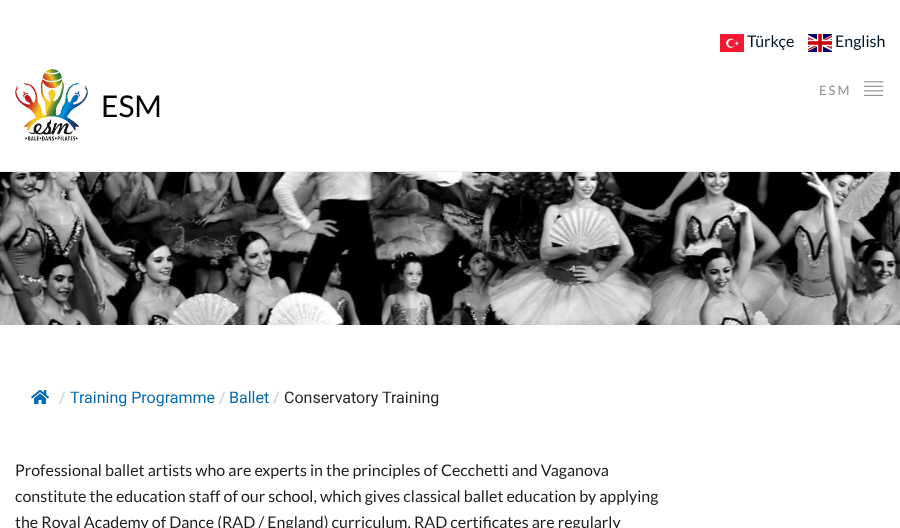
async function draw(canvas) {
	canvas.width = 900;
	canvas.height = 528;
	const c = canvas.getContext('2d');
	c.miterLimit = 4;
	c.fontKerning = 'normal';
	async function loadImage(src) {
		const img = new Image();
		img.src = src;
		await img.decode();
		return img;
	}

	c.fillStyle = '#fff';
	c.fillRect(0, 0, 900, 528);
	c.drawImage(await loadImage('img1.png'), 720, 34, 24, 18);
	c.font = '16px Lato';
	c.fillStyle = '#011627';
	c.fillText('Türkçe', 747, 47);
	c.drawImage(await loadImage('img2.png'), 808, 34, 24, 18);
	c.fillText('English', 835, 47);
	c.drawImage(await loadImage('img3.png'), 15, 69, 73, 72);
	c.letterSpacing = '2px';
	c.font = '13px Lato';
	c.fillStyle = '#8f8f8f';
	c.fillText('ESM', 819, 95);
	c.drawImage(await loadImage('img4.png'), 864, 81, 20, 15);
	c.letterSpacing = '0px';
	c.font = '30px Lato';
	c.fillStyle = '#000';
	c.fillText('ESM', 101, 117);
	c.fillStyle = '#eee';
	c.fillRect(0, 171, 900, 1);
	c.drawImage(await loadImage('img5.png'), 0, 172, 900, 153);
	c.drawImage(await loadImage('img6.png'), 31, 390, 18, 14);
	c.font = '16px Roboto';
	c.fillStyle = '#ccc';
	c.fillText('/', 59, 403);
	c.fillStyle = '#046ab4';
	c.fillText('Training Programme', 70, 403);
	c.fillStyle = '#ccc';
	c.fillText('/', 219, 403);
	c.fillStyle = '#046ab4';
	c.fillText('Ballet', 229, 403);
	c.fillStyle = '#ccc';
	c.fillText('/', 273, 403);
	c.fillStyle = '#27272a';
	c.fillText('Conservatory Training', 284, 403);
	c.font = '16px Lato';
	c.fillStyle = '#1e1e1e';
	for (const [text, x, y] of [
		['Professional ballet artists who are experts in the principles of Cecchetti and Vaganova', 15, 476],
		['constitute the education staff of our school, which gives classical ballet education by applying', 15, 502],
		['the Royal Academy of Dance (RAD / England) curriculum. RAD certificates are regularly', 15, 528],
	]) {
		c.fillText(text, x, y);
	}
}

draw(document.querySelector('canvas'));
